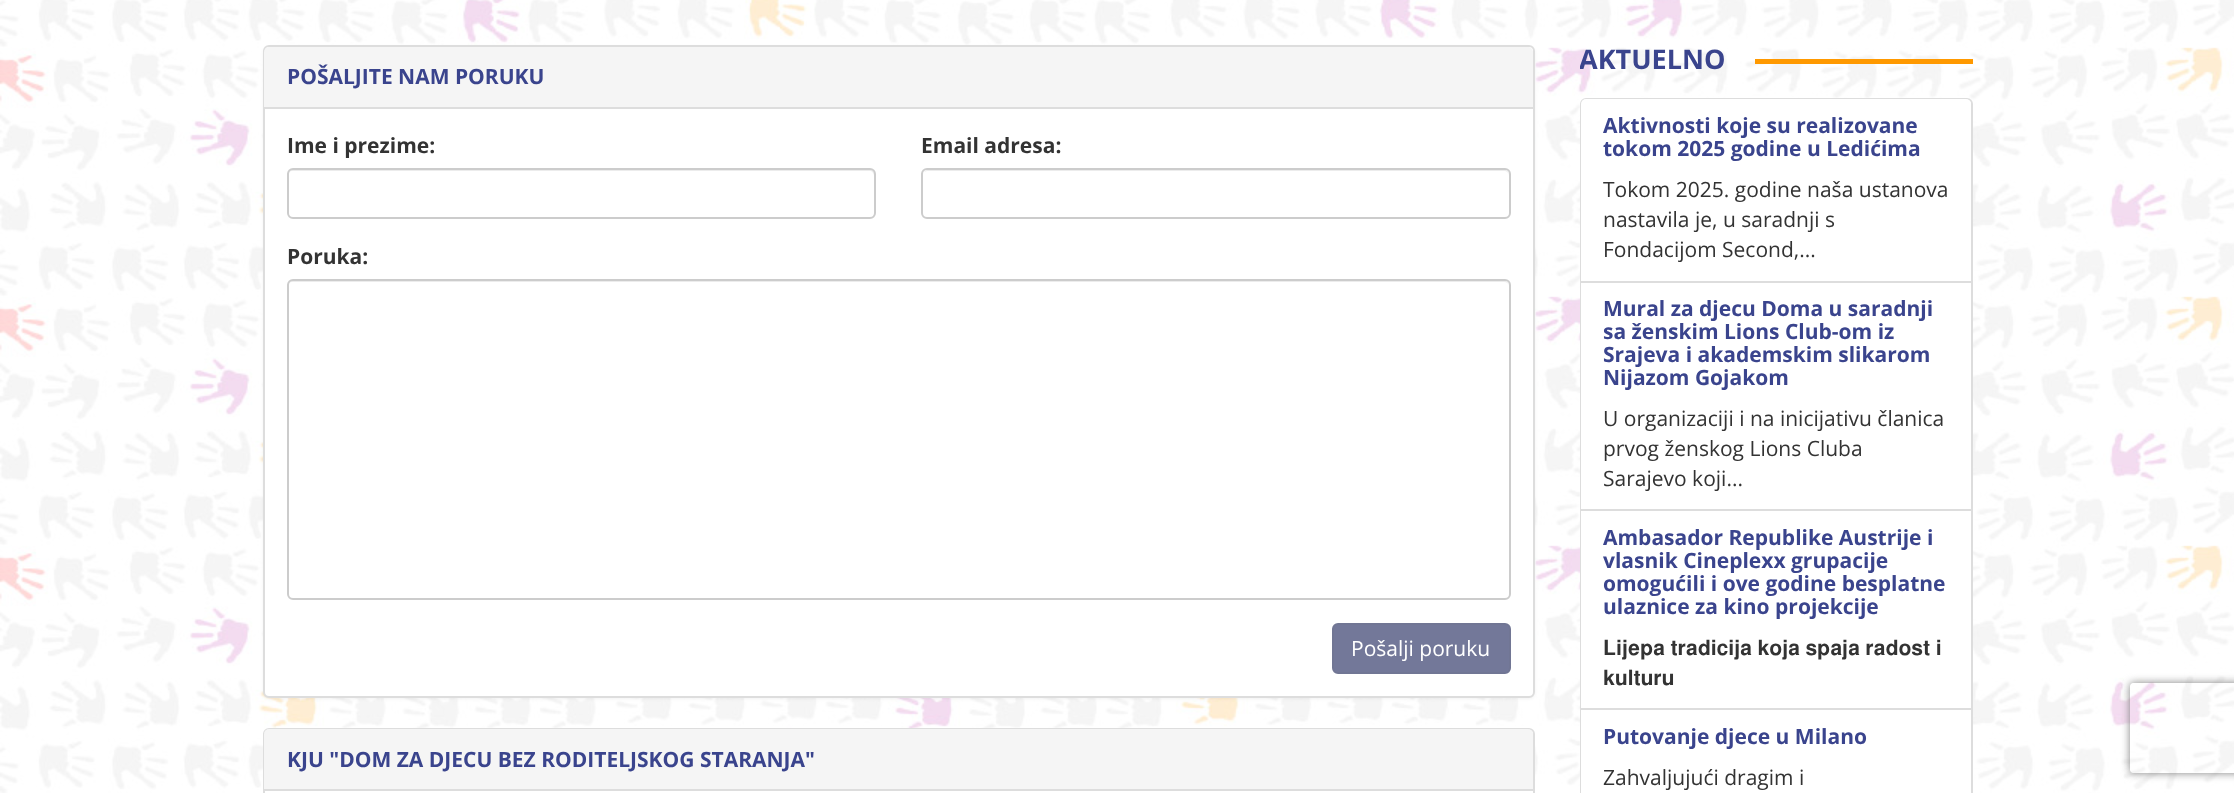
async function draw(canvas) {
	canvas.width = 2234;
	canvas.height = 793;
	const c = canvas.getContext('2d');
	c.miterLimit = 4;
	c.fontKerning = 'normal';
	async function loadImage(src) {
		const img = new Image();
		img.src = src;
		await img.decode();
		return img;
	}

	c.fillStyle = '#fff';
	c.fillRect(0, 0, 2234, 793);
	c.drawImage(await loadImage('img1.png'), 0, 0, 2234, 793);
	c.fillStyle = '#0000000d';
	c.filter = 'blur(1.5px)';
	c.beginPath();
	c.roundRect(263, 47, 1272, 652, 6);
	c.fill();
	c.filter = 'none';
	c.fillStyle = '#fff';
	c.beginPath();
	c.roundRect(264, 46, 1270, 651, 5);
	c.fill();
	c.strokeStyle = '#ddd';
	c.lineWidth = 2;
	c.stroke();
	c.fillStyle = '#f5f5f5';
	c.beginPath();
	c.roundRect(264, 47, 1269, 61, [5, 5, 0, 0]);
	c.fill();
	c.fillStyle = '#ddd';
	c.fillRect(264, 107, 1269, 2);
	c.font = 'bold 21px Open Sans';
	c.fillStyle = '#3a448d';
	c.fillText('POŠALJITE NAM PORUKU', 287, 84);
	c.fillStyle = '#333';
	c.fillText('Ime i prezime:', 287, 153);
	c.fillStyle = '#ececec';
	c.beginPath();
	c.moveTo(292, 171);
	c.lineTo(870, 171);
	c.bezierCurveTo(872, 171, 874, 173, 874, 176);
	c.lineTo(874, 214);
	c.lineTo(873, 217);
	c.bezierCurveTo(874, 216, 875, 214, 875, 213);
	c.lineTo(875, 175);
	c.bezierCurveTo(875, 172, 873, 170, 870, 170);
	c.lineTo(293, 170);
	c.bezierCurveTo(290, 170, 288, 172, 288, 175);
	c.lineTo(288, 176);
	c.bezierCurveTo(288, 173, 290, 171, 292, 171);
	c.closePath();
	c.fill();
	c.beginPath();
	c.roundRect(288, 169, 587, 49, 5);
	c.strokeStyle = '#ccc';
	c.stroke();
	c.fillStyle = '#333';
	c.fillText('Email adresa:', 921, 153);
	c.fillStyle = '#ececec';
	c.beginPath();
	c.moveTo(927, 171);
	c.lineTo(1504, 171);
	c.bezierCurveTo(1507, 171, 1509, 173, 1509, 176);
	c.lineTo(1509, 175);
	c.bezierCurveTo(1509, 172, 1507, 170, 1504, 170);
	c.lineTo(928, 170);
	c.bezierCurveTo(926, 170, 925, 171, 924, 172);
	c.closePath();
	c.fill();
	c.beginPath();
	c.roundRect(922, 169, 588, 49, 5);
	c.stroke();
	c.fillStyle = '#333';
	c.fillText('Poruka:', 287, 264);
	c.fillStyle = '#ececec';
	c.beginPath();
	c.moveTo(292, 282);
	c.lineTo(1504, 282);
	c.bezierCurveTo(1507, 282, 1509, 284, 1509, 286);
	c.bezierCurveTo(1509, 283, 1507, 281, 1504, 281);
	c.lineTo(293, 281);
	c.bezierCurveTo(290, 281, 288, 283, 288, 286);
	c.bezierCurveTo(288, 284, 290, 282, 292, 282);
	c.closePath();
	c.fill();
	c.beginPath();
	c.roundRect(288, 280, 1222, 319, 5);
	c.stroke();
	c.fillStyle = '#737899';
	c.beginPath();
	c.roundRect(1333, 624, 177, 49, 5);
	c.fill();
	c.strokeStyle = '#717694';
	c.stroke();
	c.font = '21px Open Sans';
	c.fillStyle = '#fff';
	c.fillText('Pošalji poruku', 1351, 656);
	c.beginPath();
	c.roundRect(264, 729, 1270, 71, 5);
	c.fill();
	c.strokeStyle = '#ddd';
	c.stroke();
	c.fillStyle = '#f5f5f5';
	c.beginPath();
	c.roundRect(264, 729, 1269, 62, [5, 5, 0, 0]);
	c.fill();
	c.fillStyle = '#ddd';
	c.fillRect(264, 789, 1269, 2);
	c.font = 'bold 21px Open Sans';
	c.fillStyle = '#3a448d';
	c.fillText('KJU "DOM ZA DJECU BEZ RODITELJSKOG STARANJA"', 287, 767);
	c.save();
	c.beginPath();
	c.rect(1580, 45, 393, 30);
	c.clip();
	c.font = 'bold 27px Open Sans';
	c.fillText('AKTUELNO', 1579, 69);
	c.restore();
	c.fillStyle = '#f90';
	c.fillRect(1755, 59, 218, 5);
	c.beginPath();
	c.roundRect(1581, 99, 391, 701, 5);
	c.stroke();
	c.fillStyle = '#fff';
	c.beginPath();
	c.roundRect(1581, 99, 390, 183, [5, 5, 0, 0]);
	c.fill();
	c.fillStyle = '#3a448d';
	c.fillText('Aktivnosti koje su realizovane', 1603, 133);
	c.fillText('tokom 2025 godine u Ledićima', 1603, 156);
	c.font = '21px Open Sans';
	c.fillStyle = '#333';
	for (const [text, x, y] of [
		['Tokom 2025. godine naša ustanova', 1603, 197],
		['nastavila je, u saradnji s', 1603, 227],
		['Fondacijom Second,...', 1603, 257],
	]) {
		c.fillText(text, x, y);
	}
	c.fillStyle = '#fff';
	c.fillRect(1581, 283, 390, 226);
	c.fillStyle = '#ddd';
	c.fillRect(1581, 281, 390, 2);
	c.font = 'bold 21px Open Sans';
	c.fillStyle = '#3a448d';
	for (const [text, x, y] of [
		['Mural za djecu Doma u saradnji', 1603, 316],
		['sa ženskim Lions Club-om iz', 1603, 339],
		['Srajeva i akademskim slikarom', 1603, 362],
		['Nijazom Gojakom', 1603, 385],
	]) {
		c.fillText(text, x, y);
	}
	c.font = '21px Open Sans';
	c.fillStyle = '#333';
	for (const [text, x, y] of [
		['U organizaciji i na inicijativu članica', 1603, 426],
		['prvog ženskog Lions Cluba', 1603, 456],
		['Sarajevo koji...', 1603, 486],
	]) {
		c.fillText(text, x, y);
	}
	for (const [x, y, w, h, color] of [
		[1581, 511, 390, 197, '#fff'],
		[1581, 509, 390, 2, '#ddd'],
		[1581, 708, 390, 2, '#ddd'],
	]) {
		c.fillStyle = color;
		c.fillRect(x, y, w, h);
	}
	c.font = 'bold 21px Open Sans';
	c.fillStyle = '#3a448d';
	for (const [text, x, y] of [
		['Ambasador Republike Austrije i', 1603, 545],
		['vlasnik Cineplexx grupacije', 1603, 568],
		['omogućili i ove godine besplatne', 1603, 591],
		['ulaznice za kino projekcije', 1603, 614],
	]) {
		c.fillText(text, x, y);
	}
	c.wordSpacing = '0.25px';
	c.font = '21px FreeSans';
	c.fillStyle = '#333';
	c.fillText('𝐋𝐢𝐣𝐞𝐩𝐚 𝐭𝐫𝐚𝐝𝐢𝐜𝐢𝐣𝐚 𝐤𝐨𝐣𝐚 𝐬𝐩𝐚𝐣𝐚 𝐫𝐚𝐝𝐨𝐬𝐭 𝐢', 1603, 655);
	c.wordSpacing = '0px';
	c.fillText('𝐤𝐮𝐥𝐭𝐮𝐫𝐮', 1603, 685);
	c.fillStyle = '#fff';
	c.fillRect(1581, 710, 390, 83);
	c.font = 'bold 21px Open Sans';
	c.fillStyle = '#3a448d';
	c.fillText('Putovanje djece u Milano', 1603, 744);
	c.font = '21px Open Sans';
	c.fillStyle = '#333';
	c.fillText('Zahvaljujući dragim i', 1603, 785);
	c.save();
	c.beginPath();
	c.moveTo(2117, 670);
	c.lineTo(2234, 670);
	c.lineTo(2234, 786);
	c.lineTo(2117, 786);
	c.closePath();
	c.moveTo(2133, 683);
	c.lineTo(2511, 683);
	c.bezierCurveTo(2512.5, 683, 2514, 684.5, 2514, 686);
	c.lineTo(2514, 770);
	c.bezierCurveTo(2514, 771.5, 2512.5, 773, 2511, 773);
	c.lineTo(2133, 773);
	c.bezierCurveTo(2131.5, 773, 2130, 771.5, 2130, 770);
	c.lineTo(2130, 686);
	c.bezierCurveTo(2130, 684.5, 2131.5, 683, 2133, 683);
	c.closePath();
	c.clip('evenodd');
	c.fillStyle = '#808080';
	c.filter = 'blur(4px)';
	c.beginPath();
	c.roundRect(2130, 683, 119, 90, 3);
	c.fill();
	c.filter = 'none';
	c.restore();
}

draw(document.querySelector('canvas'));
